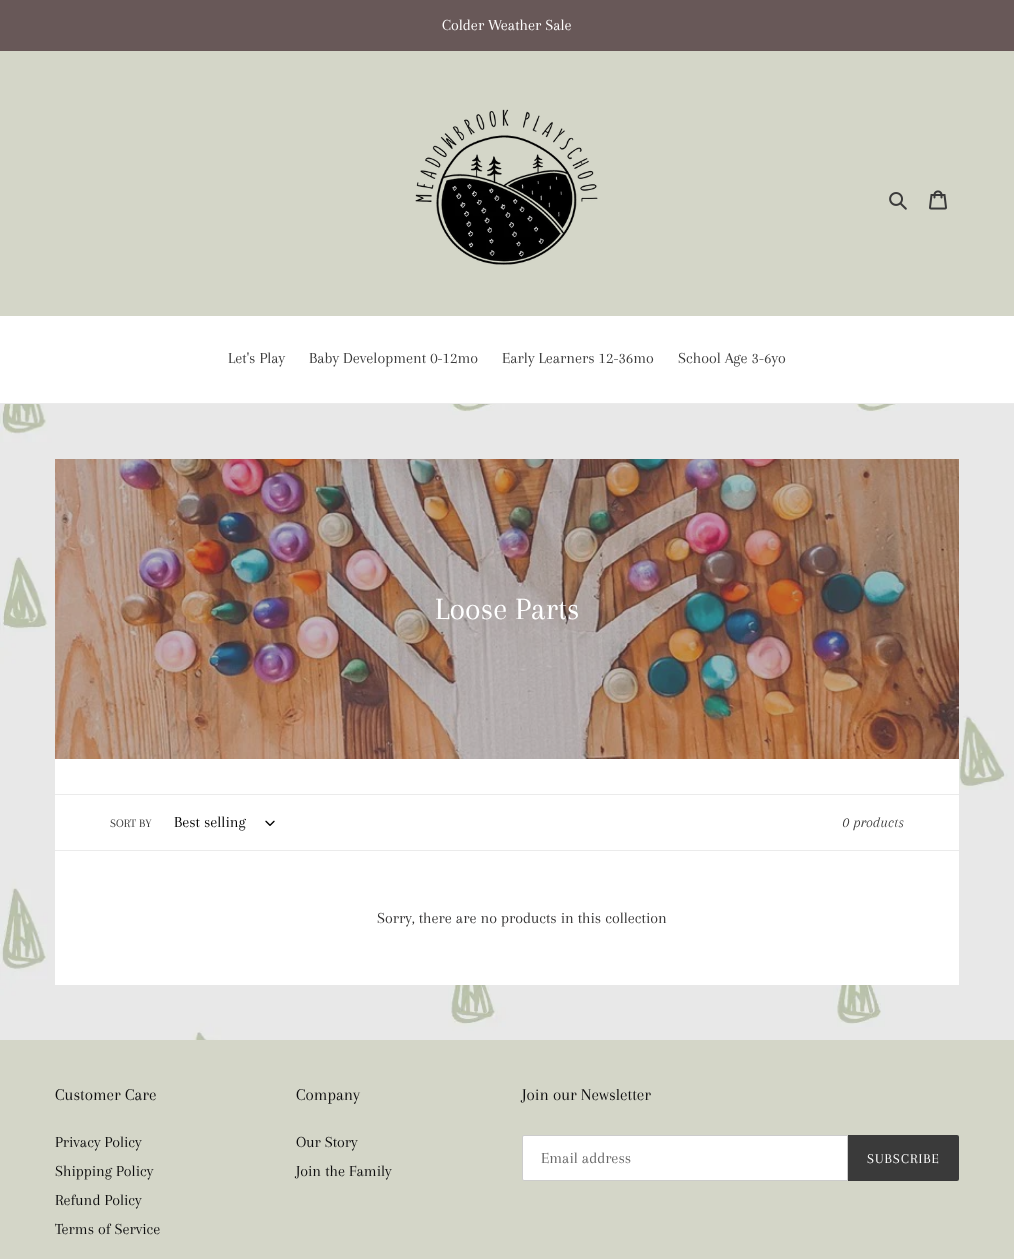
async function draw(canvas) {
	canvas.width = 1014;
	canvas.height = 1259;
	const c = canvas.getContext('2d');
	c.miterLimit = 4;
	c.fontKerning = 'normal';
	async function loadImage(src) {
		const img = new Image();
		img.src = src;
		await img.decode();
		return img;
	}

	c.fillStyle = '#fff';
	c.fillRect(0, 0, 1014, 1259);
	c.drawImage(await loadImage('img1.png'), 1013, 404, 1, 636);
	c.drawImage(await loadImage('img2.png'), 0, 404, 1014, 636);
	c.fillStyle = '#685858';
	c.fillRect(0, 0, 1014, 51);
	c.font = '16px Arapey';
	c.fillStyle = '#fff';
	c.fillText('Colder Weather Sale', 442, 30);
	c.fillStyle = '#d4d6c8';
	c.fillRect(0, 51, 1014, 265);
	c.drawImage(await loadImage('img3.png'), 415, 109, 183, 156);
	c.drawImage(await loadImage('img4.png'), 889, 192, 18, 18);
	c.drawImage(await loadImage('img5.png'), 929, 190, 18, 20);
	c.fillStyle = '#ebebeb';
	c.fillRect(0, 403, 1014, 1);
	c.fillStyle = '#3a3a3a';
	for (const [text, x, y] of [
		['Let\'s Play', 228, 363],
		['Baby Development 0-12mo', 309, 363],
		['Early Learners 12-36mo', 502, 363],
		['School Age 3-6yo', 678, 363],
	]) {
		c.fillText(text, x, y);
	}
	c.fillStyle = '#fff';
	c.fillRect(55, 759, 904, 226);
	c.drawImage(await loadImage('img6.png'), 55, 459, 904, 300);
	c.font = '32px Arapey';
	c.fillText('Loose Parts', 435, 619);
	c.fillStyle = '#ebebeb';
	c.fillRect(55, 794, 904, 1);
	c.fillRect(55, 850, 904, 1);
	c.font = '12px Arapey';
	c.fillStyle = '#3a3a3a';
	c.fillText('SORT BY', 110, 827);
	c.font = '16px Arapey';
	c.fillStyle = '#000';
	c.fillText('Best selling', 174, 827);
	c.drawImage(await loadImage('img7.png'), 265, 820, 10, 6);
	c.font = 'italic 15px Arapey';
	c.fillStyle = '#3a3a3a';
	c.fillText('0 products', 842, 827);
	c.font = '16px Arapey';
	c.fillStyle = '#333232';
	c.fillText('Sorry, there are no products in this collection', 377, 923);
	c.fillStyle = '#d4d6c8';
	c.fillRect(0, 1040, 1014, 219);
	c.font = '17px Arapey';
	c.fillStyle = '#0c0c0d';
	c.fillText('Customer Care', 55, 1100);
	c.font = '16px Arapey';
	for (const [text, x, y] of [
		['Privacy Policy', 55, 1147],
		['Shipping Policy', 55, 1176],
		['Refund Policy', 55, 1205],
		['Terms of Service', 55, 1234],
	]) {
		c.fillText(text, x, y);
	}
	c.font = '17px Arapey';
	c.fillText('Company', 296, 1100);
	c.font = '16px Arapey';
	c.fillText('Our Story', 296, 1147);
	c.fillText('Join the Family', 296, 1176);
	c.font = '17px Arapey';
	c.fillText('Join our Newsletter', 522, 1100);
	c.fillStyle = '#fff';
	c.beginPath();
	c.roundRect(522.5, 1135.5, 325, 45, [1.5, 0, 0, 1.5]);
	c.fill();
	c.strokeStyle = '#ccc';
	c.stroke();
	c.font = '16px Arapey';
	c.fillStyle = '#666';
	c.fillText('Email address', 541, 1163);
	c.fillStyle = '#3a3a3a';
	c.beginPath();
	c.roundRect(848, 1135, 111, 46, [0, 2, 2, 0]);
	c.fill();
	c.letterSpacing = '1.1px';
	c.font = '14px Arapey';
	c.fillStyle = '#fff';
	c.fillText('SUBSCRIBE', 867, 1163);
}

draw(document.querySelector('canvas'));
